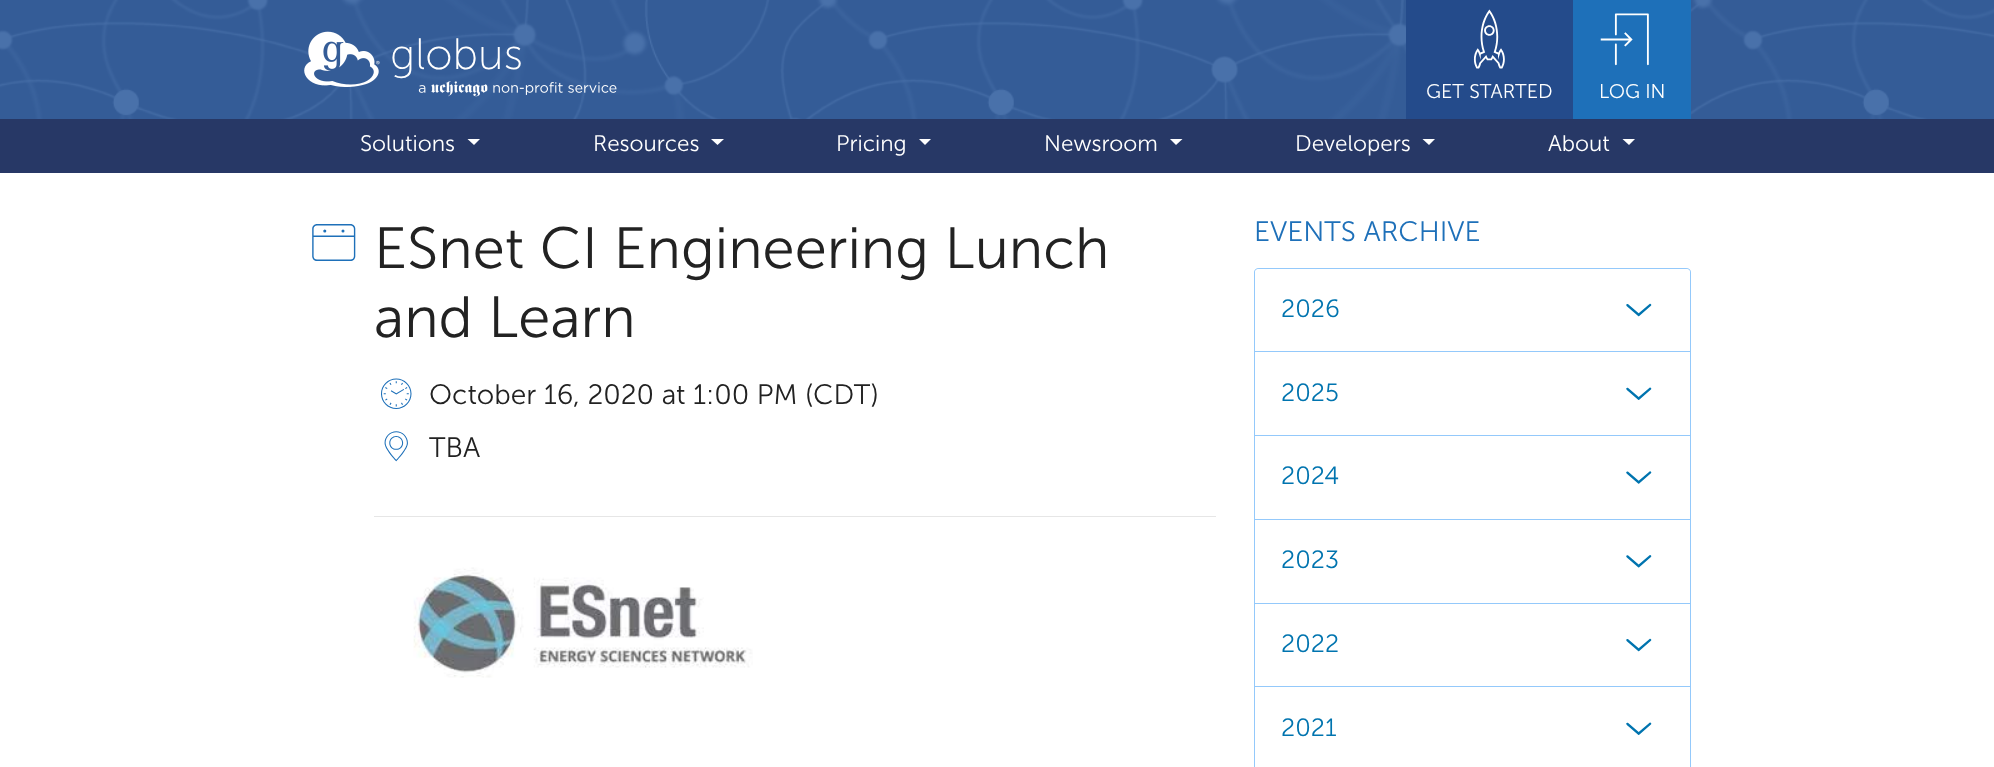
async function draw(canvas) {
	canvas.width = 1994;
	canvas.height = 767;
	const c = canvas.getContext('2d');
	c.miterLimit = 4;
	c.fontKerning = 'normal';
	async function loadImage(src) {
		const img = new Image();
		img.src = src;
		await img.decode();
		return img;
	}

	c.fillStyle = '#fff';
	c.fillRect(0, 0, 1994, 767);
	c.drawImage(await loadImage('img1.png'), 0, 0, 1994, 119);
	c.drawImage(await loadImage('img2.png'), 304, 31, 76, 56);
	c.font = '44px "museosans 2"';
	c.fillText('globus', 390, 69);
	c.drawImage(await loadImage('img3.png'), 418, 81, 199, 16);
	c.fillStyle = '#244b8b';
	c.fillRect(1406, 0, 167, 119);
	c.drawImage(await loadImage('img4.png'), 1473, 9, 32, 60);
	c.font = '19.75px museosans';
	c.fillStyle = '#fff';
	c.fillText('GET STARTED', 1426, 98);
	c.fillStyle = '#1e70b9';
	c.fillRect(1573, 0, 118, 119);
	c.drawImage(await loadImage('img5.png'), 1600, 13, 49, 53);
	c.fillStyle = '#fff';
	c.fillText('LOG IN', 1599, 98);
	c.fillStyle = '#273866';
	c.fillRect(0, 119, 1994, 54);
	c.font = '22.5px museosans';
	c.fillStyle = '#fff';
	c.fillText('Solutions', 360, 151);
	c.beginPath();
	c.moveTo(467.5, 139);
	c.lineTo(480, 139);
	c.lineTo(474, 145);
	c.closePath();
	c.fill();
	c.fillText('Resources', 593, 151);
	c.beginPath();
	c.moveTo(711, 139);
	c.lineTo(724, 139);
	c.lineTo(717.5, 145);
	c.closePath();
	c.fill();
	c.fillText('Pricing', 836, 151);
	c.beginPath();
	c.moveTo(919, 139);
	c.lineTo(931, 139);
	c.lineTo(925, 145);
	c.closePath();
	c.fill();
	c.fillText('Newsroom', 1044, 151);
	c.beginPath();
	c.moveTo(1170, 139);
	c.lineTo(1182.5, 139);
	c.lineTo(1176, 145);
	c.closePath();
	c.fill();
	c.fillText('Developers', 1295, 151);
	c.beginPath();
	c.moveTo(1422.5, 139);
	c.lineTo(1435, 139);
	c.lineTo(1429, 145);
	c.closePath();
	c.fill();
	c.fillText('About', 1548, 151);
	c.beginPath();
	c.moveTo(1622.5, 139);
	c.lineTo(1635, 139);
	c.lineTo(1629, 145);
	c.closePath();
	c.fill();
	c.drawImage(await loadImage('img6.png'), 312, 224, 44, 37);
	c.font = '58px museosans';
	c.fillStyle = '#222';
	c.fillText('ESnet CI Engineering Lunch', 374, 268);
	c.fillText('and Learn', 374, 337);
	c.drawImage(await loadImage('img7.png'), 381, 378, 31, 31);
	c.font = '28px museosans';
	c.fillText('October 16, 2020 at 1:00 PM (CDT)', 429, 404);
	c.drawImage(await loadImage('img8.png'), 384, 431, 24, 31);
	c.fillText('TBA', 429, 457);
	c.fillStyle = '#e6e6e6';
	c.fillRect(374, 516, 842, 1);
	c.drawImage(await loadImage('img9.png'), 413, 567, 340, 111);
	c.fillStyle = '#1e70b9';
	c.fillText('EVENTS ARCHIVE', 1254, 241);
	c.fillStyle = '#94c9fb';
	c.beginPath();
	c.moveTo(1259, 268);
	c.lineTo(1686, 268);
	c.bezierCurveTo(1689, 268, 1691, 270, 1691, 272);
	c.lineTo(1691, 351);
	c.lineTo(1254, 351);
	c.lineTo(1254, 272);
	c.bezierCurveTo(1254, 270, 1256, 268, 1259, 268);
	c.closePath();
	c.moveTo(1259, 269);
	c.lineTo(1686, 269);
	c.bezierCurveTo(1688, 269, 1690, 270, 1690, 272);
	c.lineTo(1690, 351);
	c.lineTo(1255, 351);
	c.lineTo(1255, 272);
	c.bezierCurveTo(1255, 270, 1257, 269, 1259, 269);
	c.closePath();
	c.fill('evenodd');
	c.fillStyle = '#fff';
	c.beginPath();
	c.roundRect(1255, 269, 435, 82, [4, 4, 0, 0]);
	c.fill();
	c.font = '25px museosans';
	c.fillStyle = '#0074af';
	c.fillText('2026', 1281, 317);
	c.drawImage(await loadImage('img10.png'), 1626, 303, 26, 14);
	for (const [x, y, w, h, color] of [
		[1254, 351, 437, 1, '#94c9fb'],
		[1690, 351, 1, 84, '#94c9fb'],
		[1254, 351, 1, 84, '#94c9fb'],
	]) {
		c.fillStyle = color;
		c.fillRect(x, y, w, h);
	}
	c.fillStyle = '#0074af';
	c.fillText('2025', 1281, 401);
	c.drawImage(await loadImage('img11.png'), 1626, 387, 26, 13);
	for (const [x, y, w, h, color] of [
		[1254, 435, 437, 1, '#94c9fb'],
		[1690, 435, 1, 84, '#94c9fb'],
		[1254, 435, 1, 84, '#94c9fb'],
	]) {
		c.fillStyle = color;
		c.fillRect(x, y, w, h);
	}
	c.fillStyle = '#0074af';
	c.fillText('2024', 1281, 484);
	c.drawImage(await loadImage('img12.png'), 1626, 471, 26, 13);
	for (const [x, y, w, h, color] of [
		[1254, 519, 437, 1, '#94c9fb'],
		[1690, 519, 1, 84, '#94c9fb'],
		[1254, 519, 1, 84, '#94c9fb'],
	]) {
		c.fillStyle = color;
		c.fillRect(x, y, w, h);
	}
	c.fillStyle = '#0074af';
	c.fillText('2023', 1281, 568);
	c.drawImage(await loadImage('img13.png'), 1626, 555, 26, 13);
	for (const [x, y, w, h, color] of [
		[1254, 603, 437, 1, '#94c9fb'],
		[1690, 603, 1, 83, '#94c9fb'],
		[1254, 603, 1, 83, '#94c9fb'],
	]) {
		c.fillStyle = color;
		c.fillRect(x, y, w, h);
	}
	c.fillStyle = '#0074af';
	c.fillText('2022', 1281, 652);
	c.drawImage(await loadImage('img10.png'), 1626, 638, 26, 14);
	for (const [x, y, w, h, color] of [
		[1254, 686, 437, 1, '#94c9fb'],
		[1690, 686, 1, 81, '#94c9fb'],
		[1254, 686, 1, 81, '#94c9fb'],
	]) {
		c.fillStyle = color;
		c.fillRect(x, y, w, h);
	}
	c.fillStyle = '#0074af';
	c.fillText('2021', 1281, 736);
	c.drawImage(await loadImage('img11.png'), 1626, 722, 26, 13);
}

draw(document.querySelector('canvas'));
